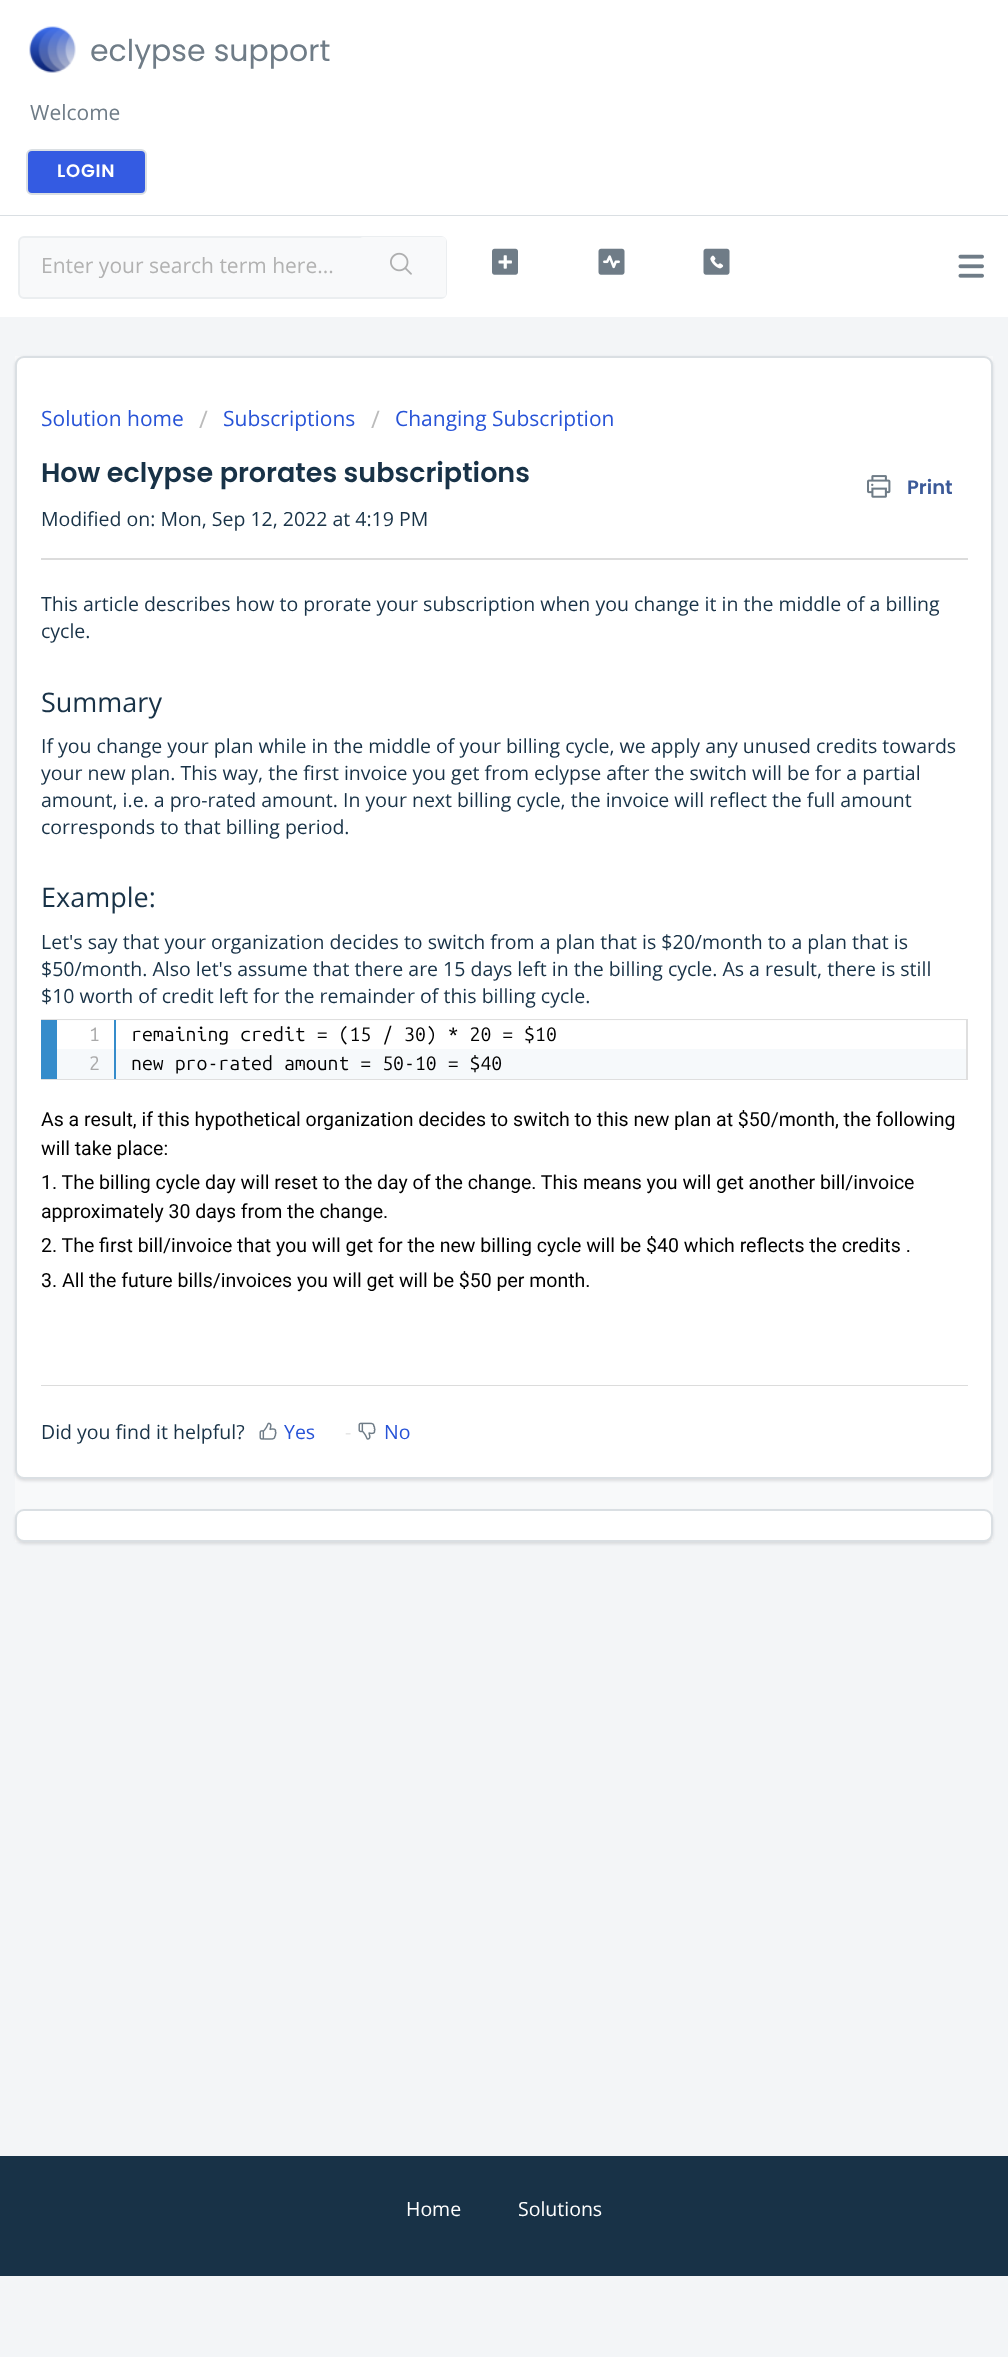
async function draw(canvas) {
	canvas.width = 1008;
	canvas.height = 2357;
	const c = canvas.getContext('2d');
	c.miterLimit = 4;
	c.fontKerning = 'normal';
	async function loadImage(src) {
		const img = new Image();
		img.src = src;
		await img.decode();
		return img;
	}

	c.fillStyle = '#f3f5f7';
	c.fillRect(0, 0, 1008, 2357);
	c.fillStyle = '#fff';
	c.fillRect(0, 0, 1008, 215);
	c.fillStyle = '#dadfe3';
	c.fillRect(0, 215, 1008, 1);
	c.drawImage(await loadImage('img1.png'), 29, 26, 47, 47);
	c.font = '30px Poppins';
	c.fillStyle = '#6f7c87';
	c.fillText('eclypse support', 90, 61);
	c.font = '21px Open Sans';
	c.fillText('Welcome', 30, 120);
	c.fillStyle = '#345be2';
	c.beginPath();
	c.roundRect(27, 150, 119, 44, 5);
	c.fill();
	c.strokeStyle = '#dadfe3';
	c.lineWidth = 2;
	c.stroke();
	c.letterSpacing = '0.75px';
	c.font = '600 18px Poppins';
	c.fillStyle = '#fff';
	c.fillText('LOGIN', 57, 177);
	c.fillRect(0, 216, 1008, 101);
	c.drawImage(await loadImage('img2.png'), 958, 254, 26, 24);
	c.fillStyle = '#f8f9fa';
	c.beginPath();
	c.roundRect(19, 237, 427, 61, 5);
	c.fill();
	c.strokeStyle = '#ebeef0';
	c.stroke();
	c.letterSpacing = '0px';
	c.font = '21px Open Sans';
	c.fillStyle = '#b2b2b2';
	c.fillText('Enter your search term here...', 41, 273);
	c.fillStyle = '#f8f9fa';
	c.beginPath();
	c.roundRect(360, 237, 86, 60, 3);
	c.fill();
	c.drawImage(await loadImage('img3.png'), 390, 252, 22, 23);
	c.drawImage(await loadImage('img4.png'), 492, 248, 26, 27);
	c.drawImage(await loadImage('img5.png'), 598, 248, 27, 27);
	c.drawImage(await loadImage('img6.png'), 703, 248, 27, 27);
	c.fillRect(15, 356, 978, 1186);
	c.fillStyle = '#3f3f4426';
	c.filter = 'blur(1.5px)';
	c.beginPath();
	c.roundRect(15, 357, 978, 1124, 9);
	c.fill();
	c.filter = 'none';
	c.fillStyle = '#fff';
	c.beginPath();
	c.roundRect(16, 357, 976, 1121, 8);
	c.fill();
	c.strokeStyle = '#dadfe3';
	c.stroke();
	c.fillStyle = '#2753d7';
	c.fillText('Solution home', 41, 426);
	c.font = '24px Open Sans';
	c.fillStyle = '#bbb';
	c.fillText('/', 199, 428);
	c.font = '21px Open Sans';
	c.fillStyle = '#2753d7';
	c.fillText('Subscriptions', 223, 426);
	c.font = '24px Open Sans';
	c.fillStyle = '#bbb';
	c.fillText('/', 371, 428);
	c.font = '21px Open Sans';
	c.fillStyle = '#2753d7';
	c.fillText('Changing Subscription', 395, 426);
	c.font = '600 27px Poppins';
	c.fillStyle = '#183247';
	c.fillText('How eclypse prorates subscriptions', 41, 482);
	c.drawImage(await loadImage('img7.png'), 867, 475, 24, 23);
	c.font = '600 19.5px Poppins';
	c.fillStyle = '#3b5998';
	c.fillText('Print', 907, 494);
	c.font = '19.5px Open Sans';
	c.fillStyle = '#183247';
	c.fillText('Modified on: Mon, Sep 12, 2022 at 4:19 PM', 41, 526);
	c.fillStyle = '#dcdcdc';
	c.fillRect(41, 558, 927, 2);
	c.fillStyle = '#183247';
	c.fillText('This article describes how to prorate your subscription when you change it in the middle of a billing', 41, 611);
	c.fillText('cycle.', 41, 638);
	c.font = '27px Open Sans';
	c.fillText('Summary', 41, 712);
	c.font = '19.5px Open Sans';
	c.fillText('If you change your plan while in the middle of your billing cycle, we apply any unused credits towards', 41, 753);
	c.save();
	c.beginPath();
	c.rect(41, 584, 927, 777);
	c.clip();
	c.fillText('your new plan. This way, the first invoice you get from eclypse after the switch will be for a partial', 41, 780);
	c.restore();
	c.fillText('amount, i.e. a pro-rated amount. In your next billing cycle, the invoice will reflect the full amount', 41, 807);
	c.fillText('corresponds to that billing period.', 41, 834);
	c.font = '27px Open Sans';
	c.fillText('Example:', 41, 907);
	c.font = '19.5px Open Sans';
	for (const [text, x, y] of [
		['Let\'s say that your organization decides to switch from a plan that is $20/month to a plan that is', 41, 949],
		['$50/month. Also let\'s assume that there are 15 days left in the billing cycle. As a result, there is still', 41, 976],
		['$10 worth of credit left for the remainder of this billing cycle.', 41, 1003],
	]) {
		c.fillText(text, x, y);
	}
	c.strokeStyle = '#dfdfdf';
	c.strokeRect(42, 1020, 925, 59);
	c.fillStyle = '#358ccb';
	c.beginPath();
	c.moveTo(41, 1020);
	c.lineTo(41, 1079);
	c.lineTo(965, 1079);
	c.lineTo(965, 1078);
	c.lineTo(42, 1078);
	c.lineTo(42, 1020);
	c.closePath();
	c.fill();
	for (const [x, y, w, h, color] of [
		[57, 1020, 909, 1, '#fdfdfd'],
		[57, 1049, 909, 30, '#f6f9fb'],
		[42, 1020, 15, 58, '#358ccb'],
		[114, 1020, 2, 59, '#358ccb'],
	]) {
		c.fillStyle = color;
		c.fillRect(x, y, w, h);
	}
	c.letterSpacing = '-2px';
	c.font = '19.5px Ubuntu Mono';
	c.fillStyle = '#aaa';
	c.fillText('1', 89, 1041);
	c.fillText('2', 89, 1070);
	c.letterSpacing = '0px';
	c.fillStyle = '#000';
	c.fillText('remaining credit = (15 / 30) * 20 = $10', 131, 1041);
	c.fillText('new pro-rated amount = 50-10 = $40', 131, 1070);
	c.font = '19.5px Roboto';
	for (const [text, x, y] of [
		['As a result, if this hypothetical organization decides to switch to this new plan at $50/month, the following', 41, 1126],
		['will take place:', 41, 1155],
		['1. The billing cycle day will reset to the day of the change. This means you will get another bill/invoice', 41, 1189],
		['approximately 30 days from the change.', 41, 1218],
		['2. The first bill/invoice that you will get for the new billing cycle will be $40 which reflects the credits .', 41, 1252],
		['3. All the future bills/invoices you will get will be $50 per month.', 41, 1287],
	]) {
		c.fillText(text, x, y);
	}
	c.fillStyle = '#dcdcdc';
	c.fillRect(41, 1385, 927, 1);
	c.font = '19.5px Open Sans';
	c.fillStyle = '#183247';
	c.fillText('Did you find it helpful?', 41, 1439);
	c.drawImage(await loadImage('img8.png'), 259, 1422, 18, 18);
	c.fillStyle = '#2753d7';
	c.fillText('Yes', 284, 1439);
	c.fillStyle = '#e5e5e5';
	c.fillText('-', 345, 1439);
	c.drawImage(await loadImage('img9.png'), 358, 1422, 18, 18);
	c.fillStyle = '#2753d7';
	c.fillText('No', 384, 1439);
	c.fillStyle = '#3f3f4426';
	c.filter = 'blur(1.5px)';
	c.beginPath();
	c.roundRect(15, 1511, 978, 33, 9);
	c.fill();
	c.filter = 'none';
	c.fillStyle = '#fff';
	c.beginPath();
	c.roundRect(16, 1510, 976, 31, 8);
	c.fill();
	c.strokeStyle = '#dadfe3';
	c.stroke();
	c.fillStyle = '#183247';
	c.fillRect(0, 2156, 1008, 120);
	c.fillStyle = '#fff';
	c.fillText('Home', 406, 2216);
	c.fillText('Solutions', 518, 2216);
}

draw(document.querySelector('canvas'));
